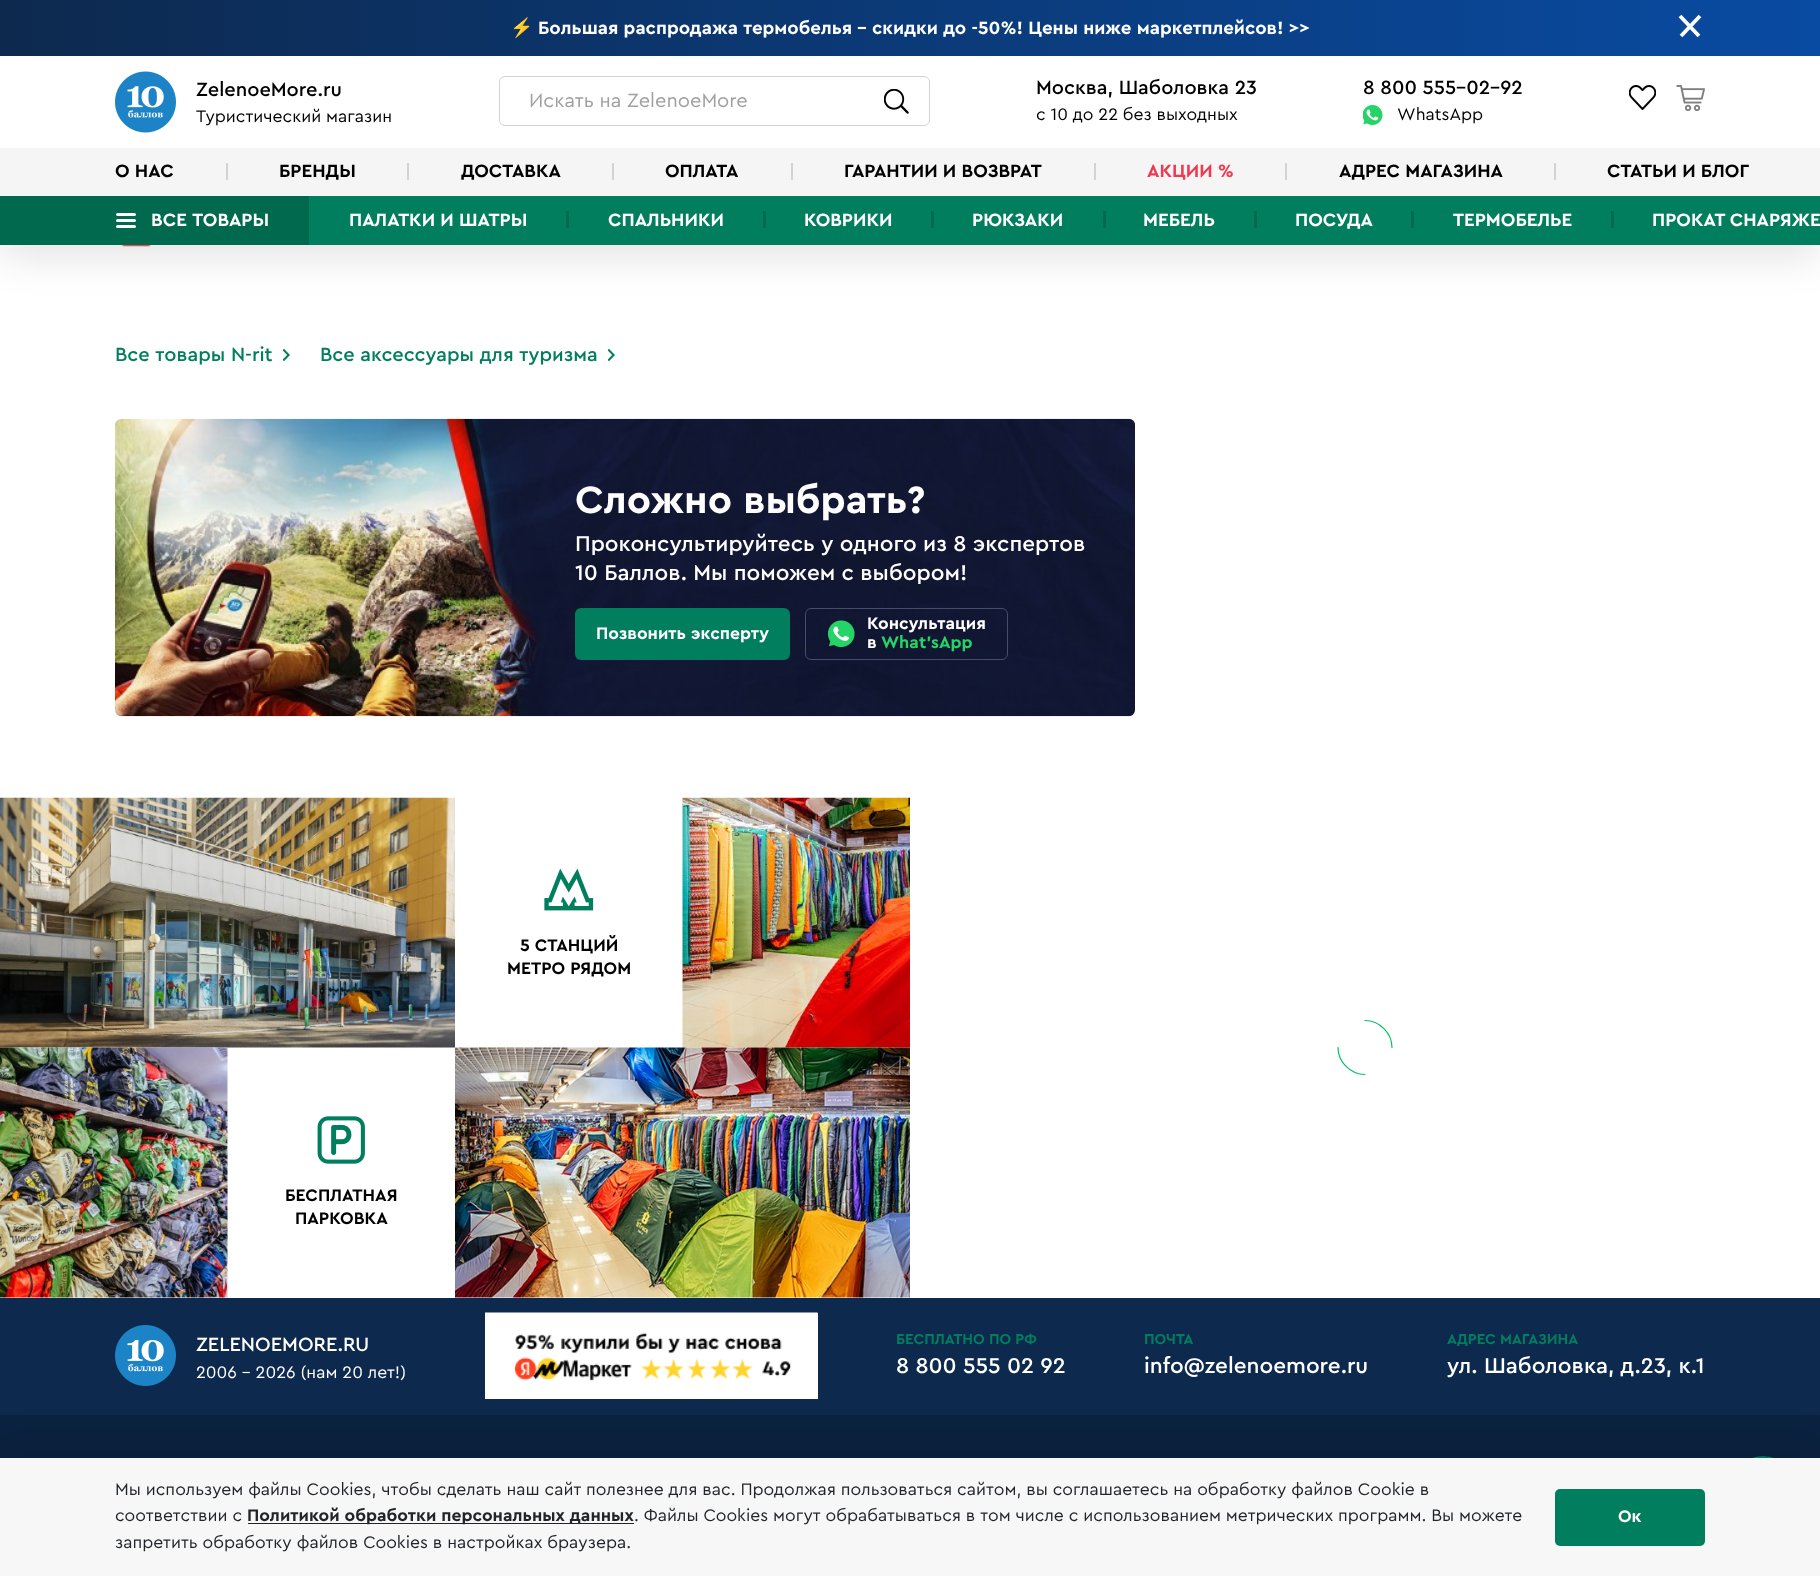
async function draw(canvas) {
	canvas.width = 1820;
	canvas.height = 1576;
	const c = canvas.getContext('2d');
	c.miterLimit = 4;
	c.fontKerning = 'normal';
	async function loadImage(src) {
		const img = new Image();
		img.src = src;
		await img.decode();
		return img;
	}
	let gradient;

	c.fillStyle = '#fff';
	c.fillRect(0, 0, 1820, 1576);
	c.drawImage(await loadImage('img6.png'), 119, 245, 92, 2);
	c.fillStyle = '#0000001a';
	c.filter = 'blur(19px)';
	c.beginPath();
	c.rect(0, 13, 1820, 245);
	c.fill();
	c.filter = 'none';
	c.fillStyle = '#fff';
	c.fillRect(0, 56, 1820, 92);
	gradient = c.createLinearGradient(0, 28, 1820, 28);
	gradient.addColorStop(0, '#0d294e');
	gradient.addColorStop(1, '#094ba2');
	c.fillStyle = gradient;
	c.fillRect(0, 0, 1820, 56);
	c.font = 'bold 18.75px Noto Color Emoji';
	c.fillStyle = '#fff';
	c.fillText('⚡', 510, 34);
	c.font = 'bold 18.75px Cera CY';
	c.fillText('Большая распродажа термобелья - скидки до -50%! Цены ниже маркетплейсов! >>', 538, 34);
	c.beginPath();
	c.moveTo(1700, 16);
	c.lineTo(1681, 36);
	c.moveTo(1680, 16);
	c.lineTo(1699, 36);
	c.strokeStyle = '#fff';
	c.lineWidth = 3.8;
	c.stroke();
	c.drawImage(await loadImage('img1.png'), 115, 71, 61, 62);
	c.font = '500 20px Cera CY';
	c.fillStyle = '#000';
	c.fillText('ZelenoeMore.ru', 196, 96);
	c.font = '17.5px Cera CY';
	c.fillText('Туристический магазин', 196, 122);
	c.beginPath();
	c.roundRect(499.5, 76.5, 430, 49, 5.5);
	c.strokeStyle = '#d3d3d3';
	c.lineWidth = 1;
	c.stroke();
	c.font = '20px Cera CY';
	c.fillStyle = '#a0a0a0';
	c.fillText('Искать на ZelenoeMore', 529, 107);
	c.drawImage(await loadImage('img2.png'), 884, 89, 25, 25);
	c.font = '500 20px Cera CY';
	c.fillStyle = '#000';
	c.fillText('Москва, Шаболовка 23', 1036, 94);
	c.font = '17.5px Cera CY';
	c.fillText('с 10 до 22 без выходных', 1036, 120);
	c.font = '500 20px Cera CY';
	c.fillText('8 800 555-02-92', 1363, 94);
	c.drawImage(await loadImage('img3.png'), 1363, 105, 20, 20);
	c.font = '17.5px Cera CY';
	c.fillText('WhatsApp', 1397, 120);
	c.drawImage(await loadImage('img4.png'), 1629, 85, 27, 25);
	c.drawImage(await loadImage('img5.png'), 1676, 85, 29, 26);
	c.fillStyle = '#f5f5f5';
	c.fillRect(0, 148, 1820, 48);
	c.font = 'bold 18.75px Cera CY';
	c.fillStyle = '#000';
	c.fillText('О НАС', 115, 177);
	c.fillStyle = '#d3d3d3';
	c.fillRect(226, 163, 2, 17);
	c.fillStyle = '#000';
	c.fillText('БРЕНДЫ', 279, 177);
	c.fillStyle = '#d3d3d3';
	c.fillRect(407, 163, 2, 17);
	c.fillStyle = '#000';
	c.fillText('ДОСТАВКА', 461, 177);
	c.fillStyle = '#d3d3d3';
	c.fillRect(612, 163, 2, 17);
	c.fillStyle = '#000';
	c.fillText('ОПЛАТА', 665, 177);
	c.fillStyle = '#d3d3d3';
	c.fillRect(791, 163, 2, 17);
	c.fillStyle = '#000';
	c.fillText('ГАРАНТИИ И ВОЗВРАТ', 844, 177);
	c.fillStyle = '#d3d3d3';
	c.fillRect(1094, 163, 2, 17);
	c.fillStyle = '#ef3a50';
	c.fillText('АКЦИИ %', 1147, 177);
	c.fillStyle = '#d3d3d3';
	c.fillRect(1285, 163, 2, 17);
	c.fillStyle = '#000';
	c.fillText('АДРЕС МАГАЗИНА', 1339, 177);
	c.fillStyle = '#d3d3d3';
	c.fillRect(1554, 163, 2, 17);
	c.fillStyle = '#000';
	c.fillText('СТАТЬИ И БЛОГ', 1607, 177);
	c.fillStyle = '#00694e';
	c.fillRect(0, 196, 309, 49);
	c.fillStyle = '#fff';
	c.beginPath();
	c.roundRect(116, 213, 20, 3, 1.5);
	c.fill();
	c.beginPath();
	c.roundRect(116, 219, 20, 3, 1.5);
	c.fill();
	c.beginPath();
	c.roundRect(116, 225, 20, 3, 1.5);
	c.fill();
	c.fillText('ВСЕ ТОВАРЫ', 151, 226);
	c.fillStyle = '#007e5e';
	c.fillRect(309, 196, 1511, 49);
	c.fillStyle = '#fff';
	c.fillText('ПАЛАТКИ И ШАТРЫ', 349, 226);
	c.fillStyle = '#00694e';
	c.fillRect(566, 211, 3, 17);
	c.fillStyle = '#fff';
	c.fillText('СПАЛЬНИКИ', 608, 226);
	c.fillStyle = '#00694e';
	c.fillRect(763, 211, 3, 17);
	c.fillStyle = '#fff';
	c.fillText('КОВРИКИ', 804, 226);
	c.fillStyle = '#00694e';
	c.fillRect(931, 211, 3, 17);
	c.fillStyle = '#fff';
	c.fillText('РЮКЗАКИ', 972, 226);
	c.fillStyle = '#00694e';
	c.fillRect(1103, 211, 3, 17);
	c.fillStyle = '#fff';
	c.fillText('МЕБЕЛЬ', 1143, 226);
	c.fillStyle = '#00694e';
	c.fillRect(1254, 211, 3, 17);
	c.fillStyle = '#fff';
	c.fillText('ПОСУДА', 1295, 226);
	c.fillStyle = '#00694e';
	c.fillRect(1411, 211, 3, 17);
	c.fillStyle = '#fff';
	c.fillText('ТЕРМОБЕЛЬЕ', 1453, 226);
	c.fillStyle = '#00694e';
	c.fillRect(1611, 211, 3, 17);
	c.fillStyle = '#fff';
	c.fillText('ПРОКАТ СНАРЯЖЕ', 1652, 226);
	c.font = '500 20px Cera CY';
	c.fillStyle = '#007e5e';
	c.fillText('Все товары N-rit', 115, 361);
	c.drawImage(await loadImage('img7.png'), 283, 349, 7, 12);
	c.fillText('Все аксессуары для туризма', 320, 361);
	c.drawImage(await loadImage('img7.png'), 608, 349, 7, 12);
	c.drawImage(await loadImage('img8.png'), 115, 418, 1020, 299);
	c.font = 'bold 40px Cera CY';
	c.fillStyle = '#fff';
	c.fillText('Сложно выбрать?', 575, 513);
	c.font = '500 22.5px Cera CY';
	c.fillText('Проконсультируйтесь у одного из 8 экспертов', 575, 551);
	c.fillText('10 Баллов. Мы поможем с выбором!', 575, 580);
	c.fillStyle = '#007e5e';
	c.beginPath();
	c.roundRect(575, 608, 215, 52, 6);
	c.fill();
	c.font = 'bold 17.5px Cera CY';
	c.fillStyle = '#fff';
	c.fillText('Позвонить эксперту', 596, 639);
	c.beginPath();
	c.roundRect(805.5, 608.5, 202, 51, 5.5);
	c.strokeStyle = '#474c6a';
	c.stroke();
	c.fillStyle = '#101630';
	c.fillRect(826, 619, 30, 30);
	c.drawImage(await loadImage('img9.png'), 827, 620, 28, 28);
	c.fillStyle = '#fff';
	c.fillText('Консультация', 867, 629);
	c.fillText('в', 867, 648);
	c.fillStyle = '#25d366';
	c.fillText('What\'sApp', 881, 648);
	c.drawImage(await loadImage('img10.png'), 0, 797, 455, 251);
	c.drawImage(await loadImage('img11.png'), 544, 868, 50, 43);
	c.fillStyle = '#000';
	c.fillText('5 СТАНЦИЙ', 520, 951);
	c.fillText('МЕТРО РЯДОМ', 507, 974);
	c.drawImage(await loadImage('img12.png'), 682, 797, 228, 251);
	c.drawImage(await loadImage('img13.png'), 0, 1047, 228, 251);
	c.drawImage(await loadImage('img14.png'), 317, 1116, 48, 48);
	c.fillText('БЕСПЛАТНАЯ', 285, 1201);
	c.fillText('ПАРКОВКА', 295, 1224);
	c.drawImage(await loadImage('img15.png'), 455, 1047, 455, 251);
	c.beginPath();
	c.moveTo(1365, 1020.5);
	c.bezierCurveTo(1379.5, 1020.5, 1392, 1033, 1392, 1047.5);
	c.moveTo(1365, 1074.5);
	c.bezierCurveTo(1350.5, 1074.5, 1338, 1062, 1338, 1047.5);
	c.strokeStyle = '#06bf66';
	c.lineWidth = 1.2;
	c.lineCap = 'round';
	c.stroke();
	c.fillStyle = '#0d294e';
	c.fillRect(0, 1298, 1820, 117);
	c.drawImage(await loadImage('img16.png'), 115, 1325, 61, 61);
	c.font = '500 20px Cera CY';
	c.fillStyle = '#fff';
	c.fillText('ZELENOEMORE.RU', 196, 1351);
	c.font = '17.5px Cera CY';
	c.fillText('2006 - 2026 (нам 20 лет!)', 196, 1378);
	c.fillRect(485, 1313, 333, 86);
	c.drawImage(await loadImage('img17.png'), 485, 1312, 333, 69);
	c.font = 'bold 15px Cera CY';
	c.fillStyle = '#007e5e';
	c.fillText('БЕСПЛАТНО ПО РФ', 896, 1344);
	c.font = '500 22.5px Cera CY';
	c.fillStyle = '#fff';
	c.fillText('8 800 555 02 92', 896, 1373);
	c.font = 'bold 15px Cera CY';
	c.fillStyle = '#007e5e';
	c.fillText('ПОЧТА', 1144, 1344);
	c.font = '500 22.5px Cera CY';
	c.fillStyle = '#fff';
	c.fillText('info@zelenoemore.ru', 1144, 1373);
	c.font = 'bold 15px Cera CY';
	c.fillStyle = '#007e5e';
	c.fillText('АДРЕС МАГАЗИНА', 1447, 1344);
	c.font = '500 22.5px Cera CY';
	c.fillStyle = '#fff';
	c.fillText('ул. Шаболовка, д.23, к.1', 1447, 1373);
	c.fillStyle = '#0b2240';
	c.fillRect(0, 1415, 1820, 43);
	c.fillStyle = '#007e5e';
	c.beginPath();
	c.arc(1763, 1491, 35, 0, 2 * Math.PI);
	c.fill();
	c.fillStyle = '#0000001a';
	c.filter = 'blur(19px)';
	c.beginPath();
	c.rect(0, 1445, 1820, 119);
	c.fill();
	c.filter = 'none';
	c.fillStyle = '#f7f7f7';
	c.fillRect(0, 1458, 1820, 118);
	c.font = '17.5px Cera CY';
	c.fillStyle = '#212529';
	c.fillText('Мы используем файлы Сookies, чтобы сделать наш сайт полезнее для вас. Продолжая пользоваться сайтом, вы соглашаетесь на обработку файлов Сookie в', 115, 1495);
	c.fillText('соответствии с', 115, 1521);
	c.fillRect(248, 1523, 386, 1);
	c.font = 'bold 17.5px Cera CY';
	c.fillText('Политикой обработки персональных данных', 247, 1521);
	c.font = '17.5px Cera CY';
	c.fillText('. Файлы Cookies могут обрабатываться в том числе с использованием метрических программ. Вы можете', 634, 1521);
	c.fillText('запретить обработку файлов Cookies в настройках браузера.', 115, 1548);
	c.fillStyle = '#007e5e';
	c.beginPath();
	c.roundRect(1555, 1489, 150, 57, 5);
	c.fill();
	c.font = 'bold 17.5px Cera CY';
	c.fillStyle = '#fff';
	c.fillText('Ок', 1618, 1522);
}

draw(document.querySelector('canvas'));
